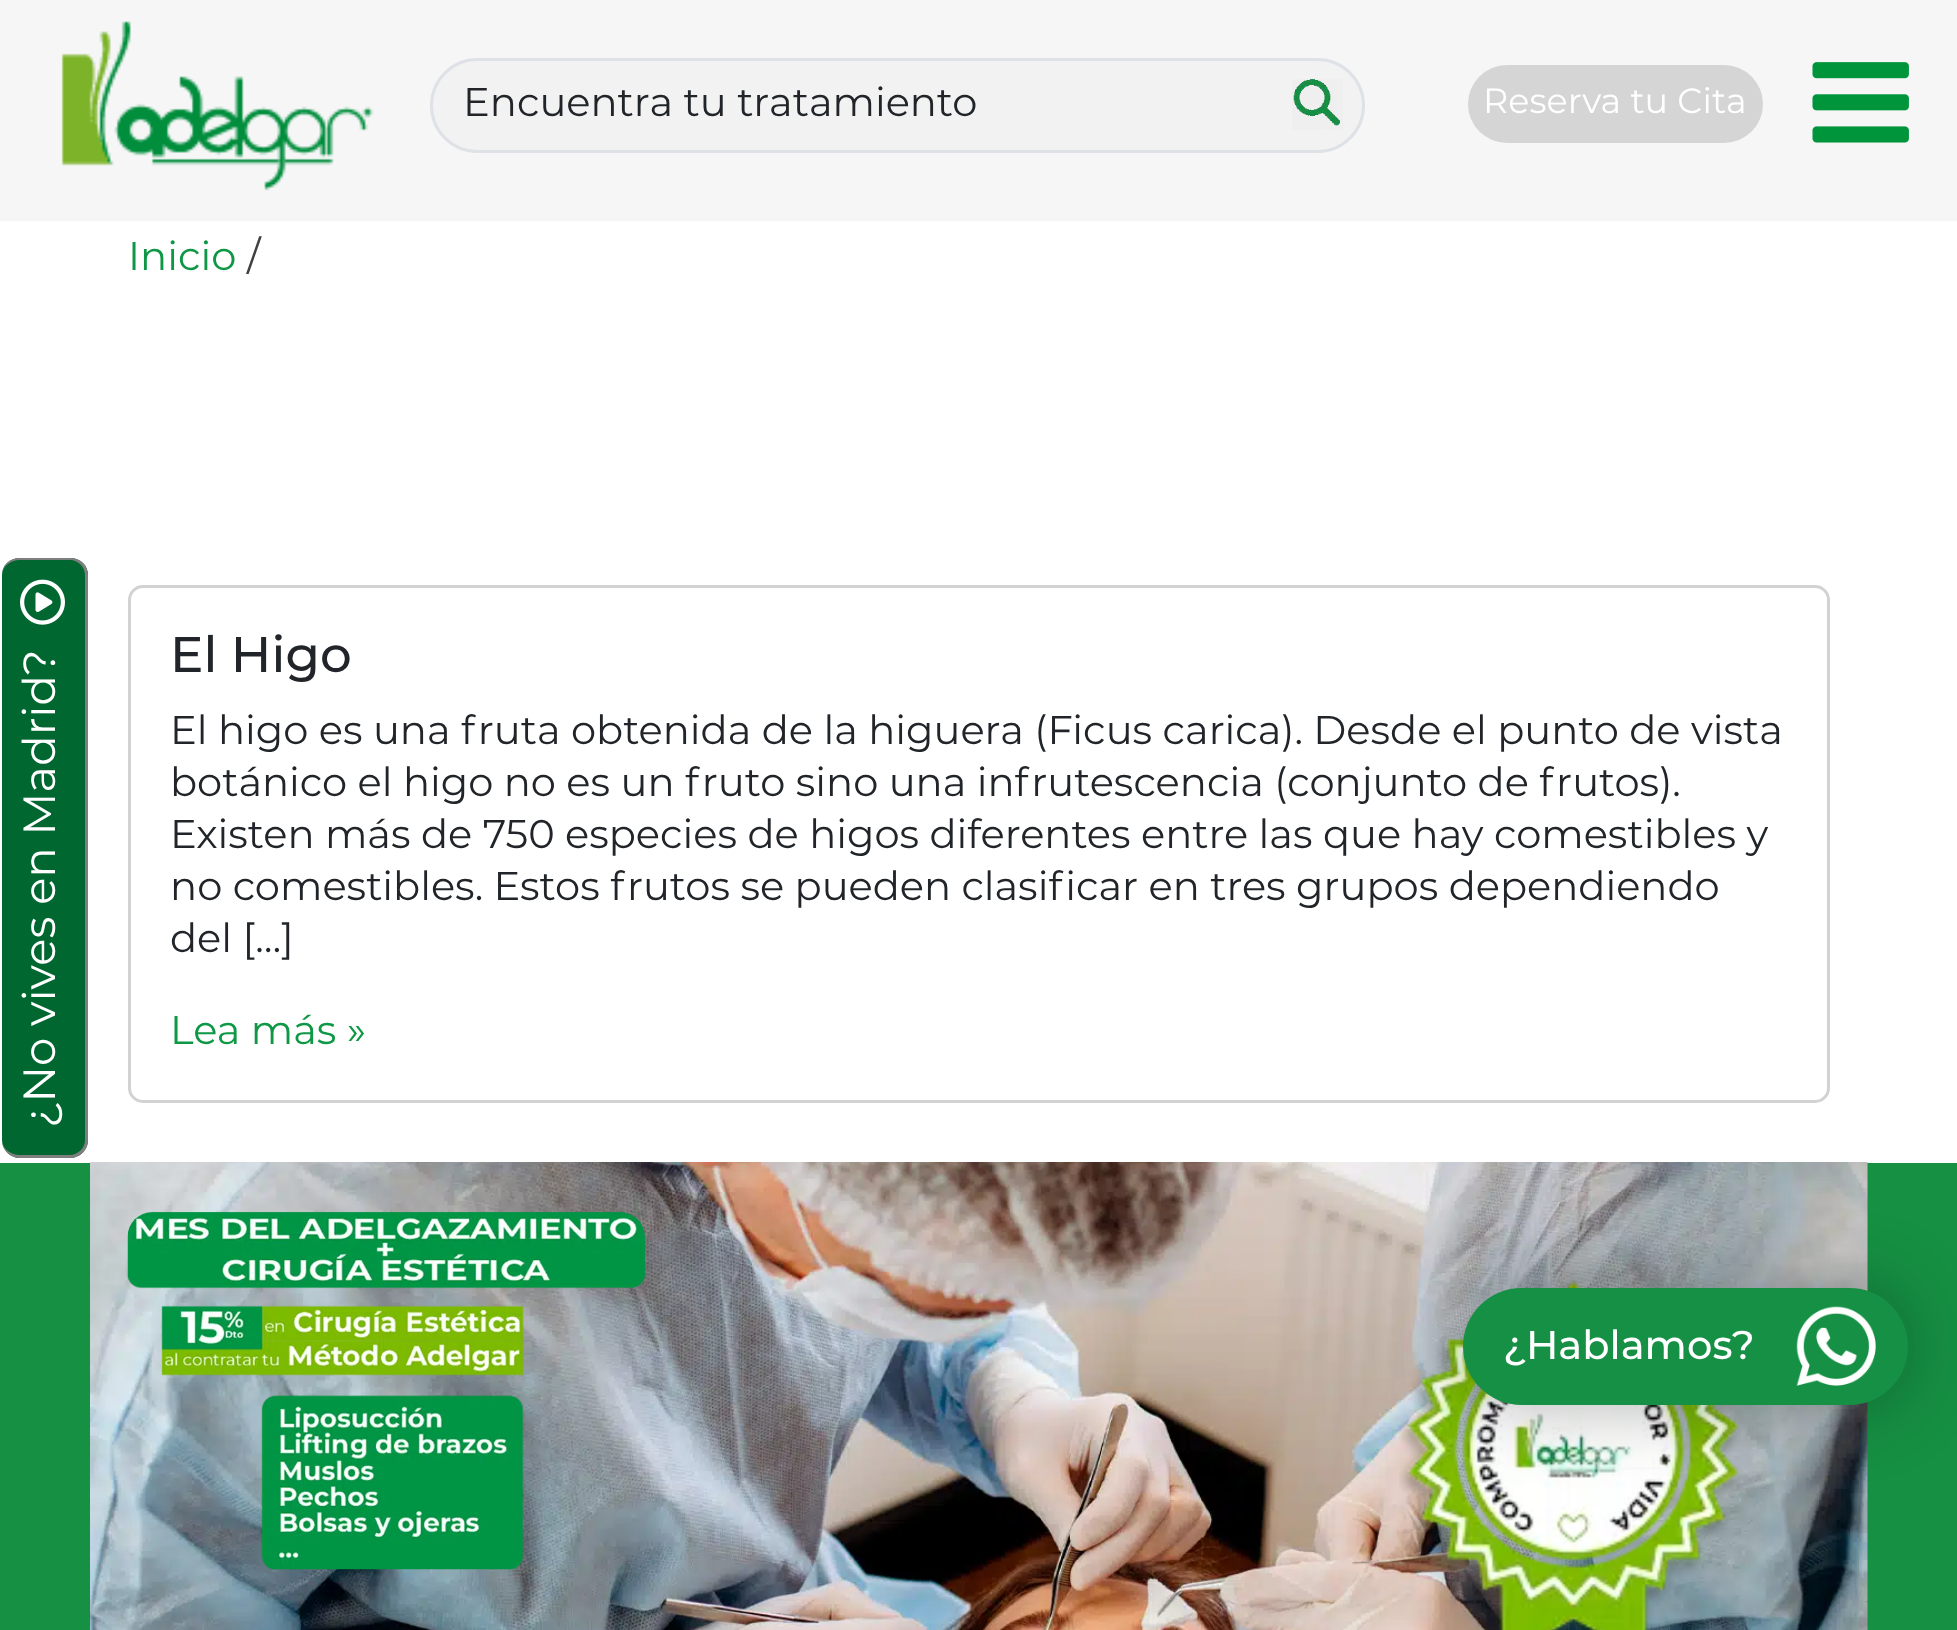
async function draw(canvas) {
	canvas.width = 1957;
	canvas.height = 1630;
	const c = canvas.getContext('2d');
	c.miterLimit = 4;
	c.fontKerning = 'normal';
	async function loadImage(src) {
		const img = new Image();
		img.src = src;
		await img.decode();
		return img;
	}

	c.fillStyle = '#fff';
	c.fillRect(0, 0, 1957, 1630);
	c.fillStyle = '#f6f6f7';
	c.fillRect(0, 0, 1957, 218);
	c.fillStyle = '#f5f5f5';
	c.fillRect(0, 218, 1957, 3);
	c.drawImage(await loadImage('img1.png'), 61, 21, 313, 170);
	c.fillStyle = '#f2f2f2';
	c.beginPath();
	c.roundRect(430, 58, 935, 95, 47.5);
	c.fill();
	c.drawImage(await loadImage('img2.png'), 1292, 79, 51, 51);
	c.beginPath();
	c.roundRect(431.5, 59.5, 932, 92, 46);
	c.strokeStyle = '#dee2e6';
	c.lineWidth = 3;
	c.stroke();
	c.font = '40px Montserrat';
	c.fillStyle = '#212529';
	c.fillText('Encuentra tu tratamiento', 463, 116);
	c.fillStyle = '#d5d5d5';
	c.beginPath();
	c.roundRect(1468, 65, 295, 78, 39);
	c.fill();
	c.font = '35px Montserrat';
	c.fillStyle = '#fff';
	c.fillText('Reserva tu Cita', 1483, 113);
	c.drawImage(await loadImage('img3.png'), 1812, 62, 97, 81);
	c.font = '40px Montserrat';
	c.fillStyle = '#0e9745';
	c.fillText('Inicio', 128, 270);
	c.fillStyle = '#404040';
	c.fillText('/', 247, 270);
	c.fillStyle = '#006730';
	c.beginPath();
	c.moveTo(2, 1140);
	c.lineTo(2, 575);
	c.bezierCurveTo(2, 565, 10, 558, 20, 558);
	c.lineTo(70, 558);
	c.bezierCurveTo(80, 558, 88, 565, 88, 575);
	c.lineTo(88, 1140);
	c.bezierCurveTo(88, 1150, 80, 1158, 70, 1158);
	c.lineTo(20, 1158);
	c.bezierCurveTo(10, 1158, 2, 1150, 2, 1140);
	c.closePath();
	c.fill();
	c.fillStyle = '#7f7f7f';
	c.beginPath();
	c.moveTo(2, 1140);
	c.lineTo(2, 575);
	c.bezierCurveTo(2, 565, 10, 558, 20, 558);
	c.lineTo(70, 558);
	c.bezierCurveTo(80, 558, 88, 565, 88, 575);
	c.lineTo(88, 1140);
	c.bezierCurveTo(88, 1150, 80, 1158, 70, 1158);
	c.lineTo(20, 1158);
	c.bezierCurveTo(10, 1158, 2, 1150, 2, 1140);
	c.closePath();
	c.moveTo(2, 1140);
	c.lineTo(2, 575);
	c.bezierCurveTo(2, 567, 10, 560, 20, 560);
	c.lineTo(70, 560);
	c.bezierCurveTo(78, 560, 85, 567, 85, 575);
	c.lineTo(85, 1140);
	c.bezierCurveTo(85, 1148, 78, 1155, 70, 1155);
	c.lineTo(20, 1155);
	c.bezierCurveTo(10, 1155, 2, 1148, 2, 1140);
	c.closePath();
	c.fill('evenodd');
	c.drawImage(await loadImage('img4.png'), 20, 579, 45, 46);
	c.font = '45px Montserrat';
	c.fillStyle = '#fff';
	c.save();
	c.translate(55, 1128);
	c.rotate(-90 * Math.PI / 180);
	c.fillText('¿No vives en Madrid?', 0, 0);
	c.restore();
	c.beginPath();
	c.roundRect(129.5, 586.5, 1699, 515, 13.5);
	c.strokeStyle = '#d2d2d2';
	c.stroke();
	c.font = '500 50px Montserrat';
	c.fillStyle = '#212529';
	c.fillText('El Higo', 170, 672);
	c.font = '40px Montserrat';
	for (const [text, x, y] of [
		['El higo es una fruta obtenida de la higuera (Ficus carica). Desde el punto de vista', 170, 744],
		['botánico el higo no es un fruto sino una infrutescencia (conjunto de frutos).', 170, 796],
		['Existen más de 750 especies de higos diferentes entre las que hay comestibles y', 170, 848],
		['no comestibles. Estos frutos se pueden clasificar en tres grupos dependiendo', 170, 900],
		['del […]', 170, 952],
	]) {
		c.fillText(text, x, y);
	}
	c.fillStyle = '#0e9745';
	c.fillText('Lea más »', 170, 1044);
	c.fillStyle = '#169043';
	c.fillRect(0, 1163, 1957, 467);
	c.drawImage(await loadImage('img5.png'), 90, 1162, 1778, 468);
	c.drawImage(await loadImage('img6.png'), 127, 1212, 518, 358);
	c.drawImage(await loadImage('img7.png'), 1399, 1281, 342, 349);
	c.fillStyle = '#0000004d';
	c.filter = 'blur(37.5px)';
	c.beginPath();
	c.roundRect(1463, 1288, 445, 117, 58.5);
	c.fill();
	c.filter = 'none';
	c.fillStyle = '#169044';
	c.beginPath();
	c.roundRect(1463, 1288, 445, 117, 58.5);
	c.fill();
	c.font = '500 40px Montserrat';
	c.fillStyle = '#fff';
	c.fillText('¿Hablamos?', 1503, 1359);
	c.drawImage(await loadImage('img8.png'), 1796, 1306, 80, 80);
}

draw(document.querySelector('canvas'));
